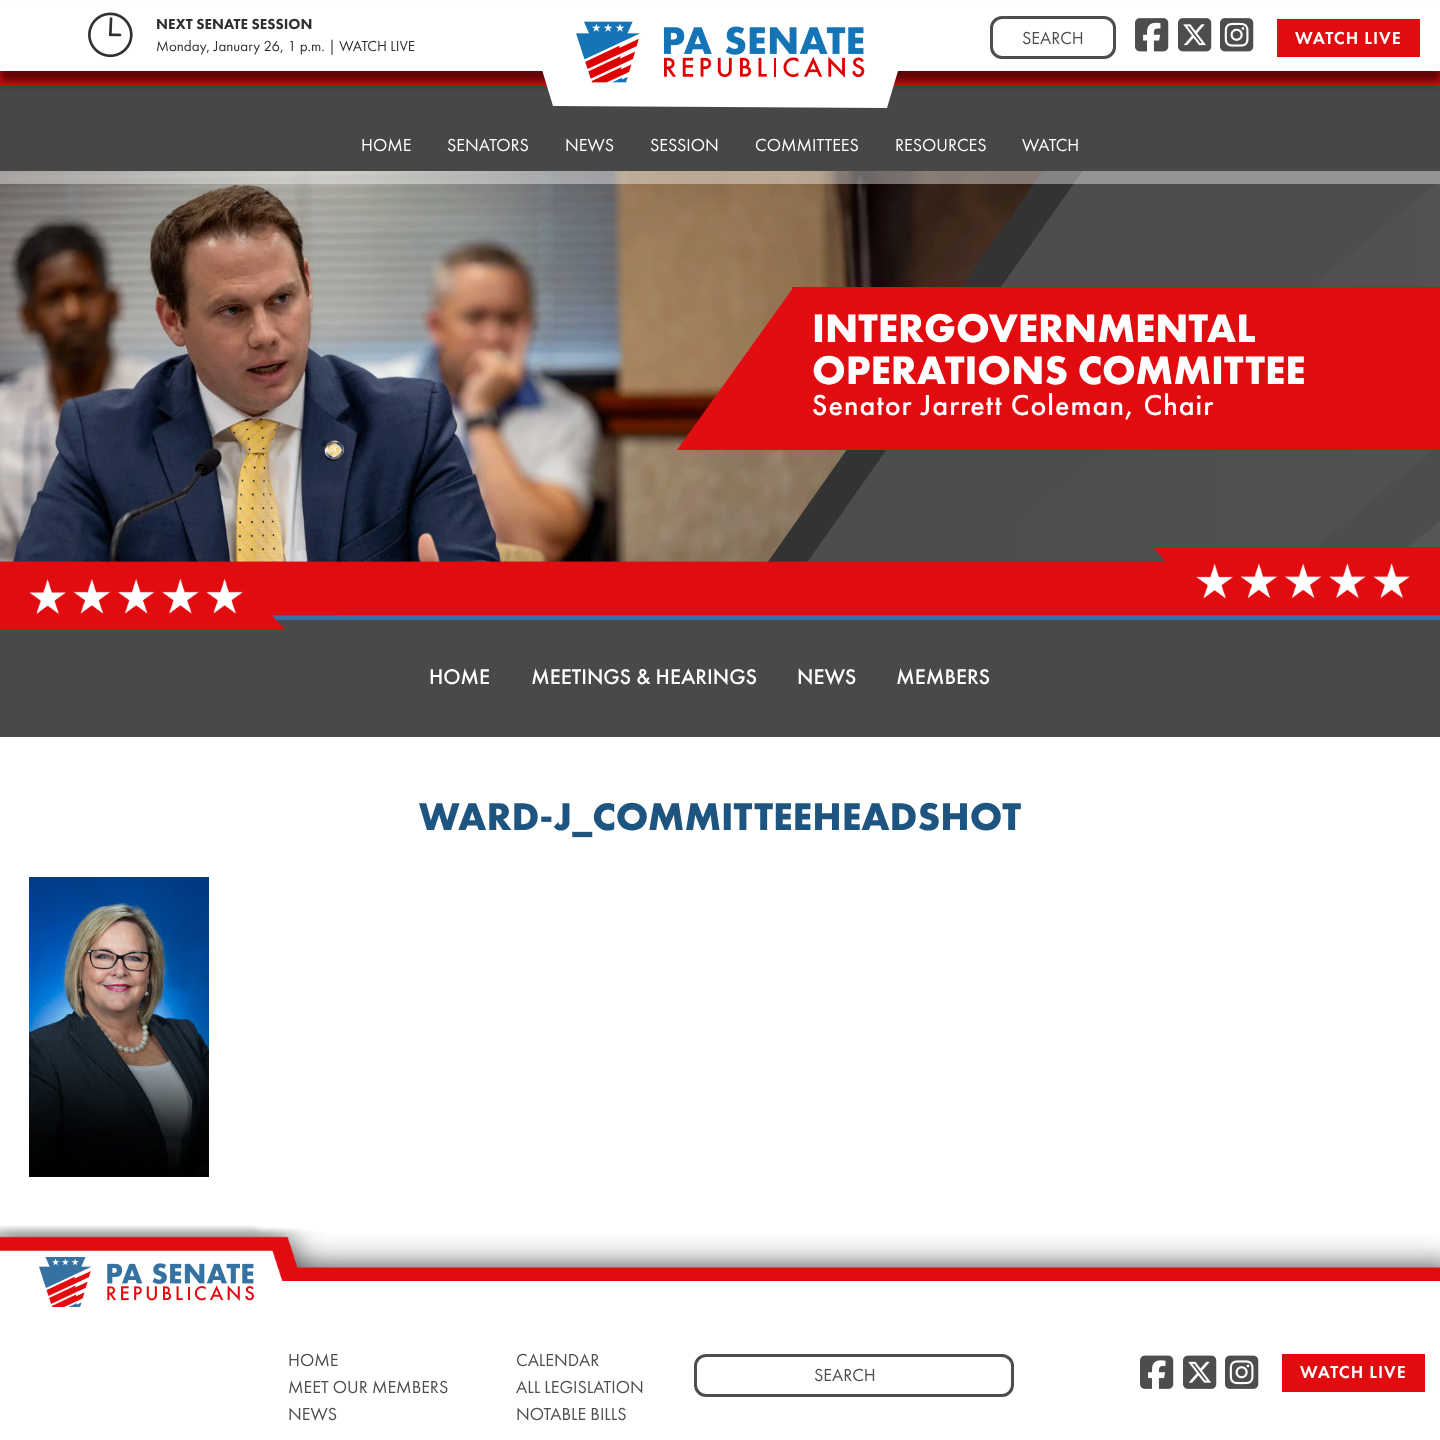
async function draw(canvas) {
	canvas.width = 1440;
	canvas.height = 1440;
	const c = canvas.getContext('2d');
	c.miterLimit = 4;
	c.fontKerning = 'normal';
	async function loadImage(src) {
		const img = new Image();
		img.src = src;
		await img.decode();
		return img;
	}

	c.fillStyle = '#fff';
	c.fillRect(0, 0, 1440, 1440);
	c.fillStyle = '#474747';
	c.fillRect(0, 86, 1440, 85);
	c.fillStyle = '#e20c10';
	c.fillRect(0, 71, 1440, 15);
	c.fillStyle = '#00000096';
	c.filter = 'blur(4px)';
	c.beginPath();
	c.rect(0, 9, 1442, 73);
	c.fill();
	c.filter = 'none';
	c.fillStyle = '#fff';
	c.fillRect(0, 1, 1440, 70);
	c.beginPath();
	c.moveTo(526, 17);
	c.lineTo(553, 106);
	c.lineTo(887, 108);
	c.lineTo(914, 17);
	c.closePath();
	c.fill();
	c.drawImage(await loadImage('img1.png'), 576, 21, 289, 62);
	c.drawImage(await loadImage('img2.png'), 88, 12, 45, 46);
	c.font = '900 15px Futura PT';
	c.fillStyle = '#303030';
	c.fillText('NEXT SENATE SESSION', 156, 29);
	c.font = '15px Futura PT';
	c.fillText('Monday, January 26, 1 p.m. | WATCH LIVE', 156, 51);
	c.beginPath();
	c.roundRect(991.5, 17.5, 123, 40, 10.5);
	c.strokeStyle = '#4d4d4d';
	c.lineWidth = 3;
	c.stroke();
	c.font = '18px Futura PT';
	c.fillStyle = '#4d4d4d';
	c.fillText('SEARCH', 1022, 44);
	c.drawImage(await loadImage('img3.png'), 1135, 18, 34, 34);
	c.drawImage(await loadImage('img4.png'), 1178, 18, 34, 34);
	c.drawImage(await loadImage('img5.png'), 1220, 18, 34, 34);
	c.fillStyle = '#e20c10';
	c.fillRect(1277, 19, 143, 38);
	c.letterSpacing = '1px';
	c.font = '500 18px Futura PT';
	c.fillStyle = '#fff';
	c.fillText('WATCH LIVE', 1295, 44);
	c.letterSpacing = '0px';
	c.font = '18px Futura PT';
	for (const [text, x, y] of [
		['HOME', 361, 151],
		['SENATORS', 447, 151],
		['NEWS', 565, 151],
		['SESSION', 650, 151],
		['COMMITTEES', 755, 151],
		['RESOURCES', 895, 151],
		['WATCH', 1022, 151],
	]) {
		c.fillText(text, x, y);
	}
	c.drawImage(await loadImage('img6.png'), 0, 171, 1043, 391);
	c.drawImage(await loadImage('img7.png'), 767, 171, 673, 391);
	c.fillStyle = '#ffffff66';
	c.fillRect(0, 171, 1440, 13);
	c.fillStyle = '#e20c10';
	c.fillRect(792, 287, 648, 163);
	c.fillStyle = '#e20d11';
	c.beginPath();
	c.moveTo(677, 450);
	c.lineTo(793, 450);
	c.lineTo(793, 288);
	c.closePath();
	c.fill();
	c.font = 'bold 41.4px Futura PT';
	c.fillStyle = '#fff';
	c.fillText('INTERGOVERNMENTAL', 812, 342);
	c.fillText('OPERATIONS COMMITTEE', 812, 384);
	c.letterSpacing = '1px';
	c.font = '500 30px "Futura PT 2"';
	c.fillText('Senator Jarrett Coleman, Chair', 812, 415);
	c.fillStyle = '#494949';
	c.fillRect(0, 617, 1440, 120);
	c.drawImage(await loadImage('img8.png'), 0, 547, 1440, 83);
	c.letterSpacing = '0px';
	c.font = '500 22px "Futura PT 2"';
	c.fillStyle = '#fff';
	for (const [text, x, y] of [
		['HOME', 429, 684],
		['MEETINGS & HEARINGS', 531, 684],
		['NEWS', 797, 684],
		['MEMBERS', 896, 684],
	]) {
		c.fillText(text, x, y);
	}
	c.font = 'bold 40px Futura PT';
	c.fillStyle = '#1d5580';
	c.fillText('WARD-J_COMMITTEEHEADSHOT', 419, 830);
	c.drawImage(await loadImage('img9.png'), 29, 877, 180, 300);
	c.drawImage(await loadImage('img10.png'), 0, 1225, 1440, 56);
	c.drawImage(await loadImage('img11.png'), 39, 1257, 215, 50);
	c.font = '18px Futura PT';
	c.fillStyle = '#4d4d4d';
	for (const [text, x, y] of [
		['HOME', 288, 1366],
		['MEET OUR MEMBERS', 288, 1393],
		['NEWS', 288, 1420],
		['CALENDAR', 516, 1366],
		['ALL LEGISLATION', 516, 1393],
		['NOTABLE BILLS', 516, 1420],
	]) {
		c.fillText(text, x, y);
	}
	c.beginPath();
	c.roundRect(695.5, 1355.5, 317, 40, 10.5);
	c.stroke();
	c.fillText('SEARCH', 814, 1381);
	c.drawImage(await loadImage('img12.png'), 1140, 1355, 34, 34);
	c.drawImage(await loadImage('img13.png'), 1183, 1355, 34, 34);
	c.drawImage(await loadImage('img14.png'), 1225, 1355, 34, 34);
	c.fillStyle = '#e20c10';
	c.fillRect(1282, 1354, 143, 38);
	c.letterSpacing = '1px';
	c.font = '500 18px Futura PT';
	c.fillStyle = '#fff';
	c.fillText('WATCH LIVE', 1300, 1378);
}

draw(document.querySelector('canvas'));
